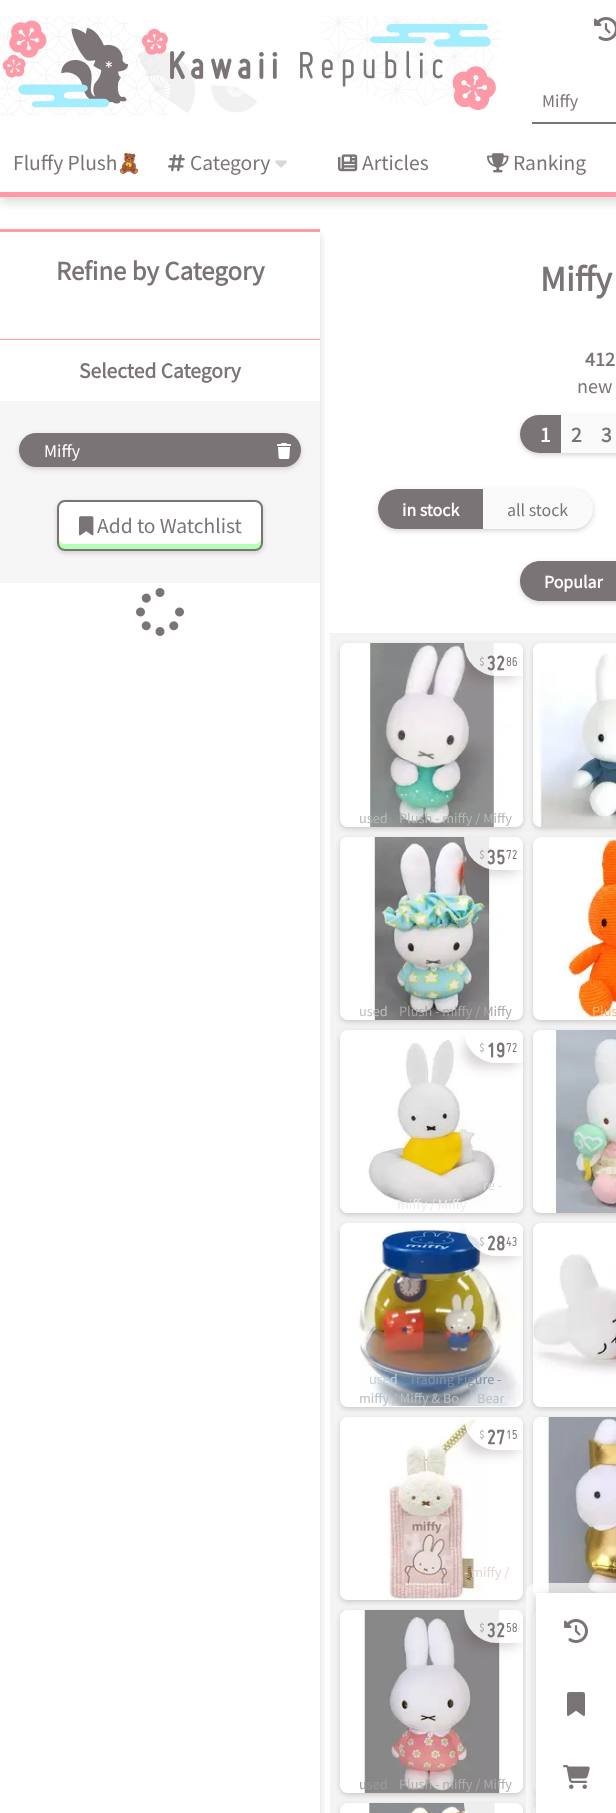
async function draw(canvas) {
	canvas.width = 616;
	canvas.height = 1813;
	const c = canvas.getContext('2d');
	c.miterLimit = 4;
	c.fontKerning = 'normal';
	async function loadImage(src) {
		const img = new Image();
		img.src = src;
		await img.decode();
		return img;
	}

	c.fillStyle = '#fff';
	c.fillRect(0, 0, 616, 1813);
	c.save();
	c.beginPath();
	c.rect(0, 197, 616, 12);
	c.clip();
	c.fillStyle = '#42242433';
	c.filter = 'blur(6px)';
	c.beginPath();
	c.rect(0, 4, 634, 197);
	c.fill();
	c.filter = 'none';
	c.restore();
	c.drawImage(await loadImage('img1.png'), 0, 16, 500, 100);
	c.drawImage(await loadImage('img2.png'), 594, 17, 22, 24);
	c.fillStyle = '#7b7476';
	c.fillRect(532, 122, 84, 2);
	c.font = '100 16px Noto Sans JP';
	c.fillText('Miffy', 542, 107);
	c.fillStyle = '#ff99a7';
	c.fillRect(0, 192, 616, 5);
	c.font = '100 19.25px Noto Sans JP';
	c.fillStyle = '#7b7476';
	c.fillText('Fluffy Plush', 13, 170);
	c.font = '19.25px Noto Color Emoji';
	c.fillText('🧸', 117, 170);
	c.drawImage(await loadImage('img3.png'), 168, 154, 17, 18);
	c.font = '100 19.25px Noto Sans JP';
	c.fillText('Category', 190, 170);
	c.drawImage(await loadImage('img4.png'), 275, 160, 12, 8);
	c.drawImage(await loadImage('img5.png'), 338, 154, 20, 18);
	c.fillText('Articles', 362, 170);
	c.drawImage(await loadImage('img6.png'), 487, 153, 22, 20);
	c.fillText('Ranking', 513, 170);
	c.save();
	c.beginPath();
	c.rect(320, 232, 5, 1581);
	c.clip();
	c.fillStyle = '#42242433';
	c.filter = 'blur(4px)';
	c.beginPath();
	c.rect(12, 235, 308, 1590);
	c.fill();
	c.filter = 'none';
	c.restore();
	c.fillStyle = '#ff99a7';
	c.fillRect(0, 229, 320, 3);
	c.font = 'bold 24px Noto Sans JP';
	c.fillStyle = '#7b7476';
	c.fillText('Refine by Category', 56, 280);
	c.fillStyle = '#f6f6f6';
	c.fillRect(0, 401, 320, 182);
	c.fillStyle = '#ff99a7';
	c.fillRect(0, 339, 320, 1);
	c.font = 'bold 19.25px Noto Sans JP';
	c.fillStyle = '#7b7476';
	c.fillText('Selected Category', 79, 378);
	c.fillStyle = '#42242433';
	c.filter = 'blur(2.5px)';
	c.beginPath();
	c.roundRect(19, 435, 282, 34, 17);
	c.fill();
	c.filter = 'none';
	c.fillStyle = '#7b7476';
	c.beginPath();
	c.roundRect(19, 433, 282, 34, 17);
	c.fill();
	c.font = '100 16px Noto Sans JP';
	c.fillStyle = '#fff';
	c.fillText('Miffy', 44, 457);
	c.drawImage(await loadImage('img7.png'), 277, 443, 14, 16);
	c.fillStyle = '#42242433';
	c.filter = 'blur(2.5px)';
	c.beginPath();
	c.roundRect(57, 502, 206, 51, 8);
	c.fill();
	c.filter = 'none';
	c.fillStyle = '#fff';
	c.beginPath();
	c.roundRect(57, 500, 206, 51, 8);
	c.fill();
	c.fillStyle = '#b3ffb3';
	c.beginPath();
	c.moveTo(59, 538);
	c.lineTo(59, 543);
	c.bezierCurveTo(59, 546, 62, 549, 65, 549);
	c.lineTo(255, 549);
	c.bezierCurveTo(258, 549, 261, 546, 261, 543);
	c.lineTo(261, 538);
	c.bezierCurveTo(261, 542, 258, 544, 255, 544);
	c.lineTo(65, 544);
	c.bezierCurveTo(62, 544, 59, 542, 59, 538);
	c.closePath();
	c.fill();
	c.beginPath();
	c.roundRect(58, 501, 204, 49, 7);
	c.strokeStyle = '#7b7476';
	c.lineWidth = 2;
	c.stroke();
	c.drawImage(await loadImage('img8.png'), 79, 516, 15, 20);
	c.font = '100 19.25px Noto Sans JP';
	c.fillStyle = '#7b7476';
	c.fillText('Add to Watchlist', 97, 533);
	c.drawImage(await loadImage('img9.png'), 136, 588, 48, 48);
	c.font = 'bold 32px Noto Sans JP';
	c.fillText('Miffy', 540, 291);
	c.font = 'bold 18px Noto Sans JP';
	c.fillText('412', 585, 366);
	c.font = '100 18px Noto Sans JP';
	c.fillText('new', 577, 393);
	c.fillStyle = '#42242433';
	c.filter = 'blur(2.5px)';
	c.beginPath();
	c.roundRect(520, 417, 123, 38, 19);
	c.fill();
	c.filter = 'none';
	c.fillStyle = '#fafafa';
	c.beginPath();
	c.roundRect(520, 415, 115, 38, 19);
	c.fill();
	c.fillStyle = '#7b7476';
	c.beginPath();
	c.roundRect(520, 415, 41, 38, [19, 0, 0, 19]);
	c.fill();
	c.font = 'bold 19.25px Noto Sans JP';
	c.fillStyle = '#fff';
	c.fillText('1', 540, 442);
	c.fillStyle = '#7b7476';
	c.fillText('2', 571, 442);
	c.fillText('3', 601, 442);
	c.fillStyle = '#42242433';
	c.filter = 'blur(2.5px)';
	c.beginPath();
	c.roundRect(378, 491, 215, 40, 20);
	c.fill();
	c.filter = 'none';
	c.fillStyle = '#fafafa';
	c.beginPath();
	c.roundRect(378, 489, 215, 40, 20);
	c.fill();
	c.fillStyle = '#7b7476';
	c.beginPath();
	c.roundRect(378, 489, 105, 40, [20, 0, 0, 20]);
	c.fill();
	c.font = 'bold 16px Noto Sans JP';
	c.fillStyle = '#fff';
	c.fillText('in stock', 402, 516);
	c.font = '100 16px Noto Sans JP';
	c.fillStyle = '#7b7476';
	c.fillText('all stock', 507, 516);
	c.fillStyle = '#42242433';
	c.filter = 'blur(2.5px)';
	c.beginPath();
	c.roundRect(520, 563, 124, 40, 20);
	c.fill();
	c.filter = 'none';
	c.fillStyle = '#7b7476';
	c.beginPath();
	c.moveTo(540, 561);
	c.lineTo(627, 561);
	c.lineTo(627, 601);
	c.lineTo(540, 601);
	c.bezierCurveTo(529, 601, 520, 592, 520, 581);
	c.bezierCurveTo(520, 570, 529, 561, 540, 561);
	c.closePath();
	c.fill();
	c.font = 'bold 16px Noto Sans JP';
	c.fillStyle = '#fff';
	c.fillText('Popular', 544, 588);
	c.fillStyle = '#f3f3f3';
	c.fillRect(330, 633, 286, 1180);
	c.fillStyle = '#42242433';
	c.filter = 'blur(2.5px)';
	c.beginPath();
	c.roundRect(340, 645, 183, 184, 8);
	c.fill();
	c.filter = 'none';
	c.fillStyle = '#f6f6f6';
	c.beginPath();
	c.roundRect(340, 643, 183, 184, 8);
	c.fill();
	c.drawImage(await loadImage('img10.png'), 340, 643, 183, 184);
	c.save();
	c.beginPath();
	c.roundRect(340, 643, 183, 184, 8);
	c.clip();
	c.beginPath();
	c.moveTo(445, 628);
	c.lineTo(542, 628);
	c.lineTo(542, 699);
	c.lineTo(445, 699);
	c.closePath();
	c.moveTo(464, 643);
	c.lineTo(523, 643);
	c.lineTo(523, 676);
	c.lineTo(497, 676);
	c.bezierCurveTo(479, 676, 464, 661, 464, 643);
	c.closePath();
	c.clip('evenodd');
	c.fillStyle = '#42242433';
	c.filter = 'blur(6px)';
	c.beginPath();
	c.roundRect(464, 647, 59, 33, 33);
	c.fill();
	c.filter = 'none';
	c.restore();
	c.fillStyle = '#ffffffd9';
	c.beginPath();
	c.roundRect(464, 643, 59, 33, [0, 8, 0, 33]);
	c.fill();
	c.font = '14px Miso';
	c.fillStyle = '#a9a5a6';
	c.fillText('$', 479, 666);
	c.font = 'bold 22px Miso';
	c.fillStyle = '#7b7476';
	c.fillText('32', 487, 670);
	c.font = '14px Miso';
	c.fillText('86', 506, 666);
	c.font = '100 12.75px Noto Sans JP';
	c.fillStyle = '#b5b8b8';
	c.fillText('used', 359, 823);
	c.fillText('Plush - miffy / Miffy', 399, 823);
	c.fillStyle = '#42242433';
	c.filter = 'blur(2.5px)';
	c.beginPath();
	c.roundRect(533, 645, 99, 184, 8);
	c.fill();
	c.filter = 'none';
	c.fillStyle = '#f6f6f6';
	c.beginPath();
	c.roundRect(533, 643, 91, 184, 8);
	c.fill();
	c.drawImage(await loadImage('img11.png'), 533, 643, 83, 184);
	c.fillStyle = '#42242433';
	c.filter = 'blur(2.5px)';
	c.beginPath();
	c.roundRect(340, 839, 183, 183, 8);
	c.fill();
	c.filter = 'none';
	c.fillStyle = '#f6f6f6';
	c.beginPath();
	c.roundRect(340, 837, 183, 183, 8);
	c.fill();
	c.drawImage(await loadImage('img12.png'), 340, 837, 183, 183);
	c.save();
	c.beginPath();
	c.roundRect(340, 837, 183, 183, 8);
	c.clip();
	c.beginPath();
	c.moveTo(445, 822);
	c.lineTo(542, 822);
	c.lineTo(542, 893);
	c.lineTo(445, 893);
	c.closePath();
	c.moveTo(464, 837);
	c.lineTo(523, 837);
	c.lineTo(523, 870);
	c.lineTo(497, 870);
	c.bezierCurveTo(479, 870, 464, 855, 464, 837);
	c.closePath();
	c.clip('evenodd');
	c.fillStyle = '#42242433';
	c.filter = 'blur(6px)';
	c.beginPath();
	c.roundRect(464, 841, 59, 33, 33);
	c.fill();
	c.filter = 'none';
	c.restore();
	c.fillStyle = '#ffffffd9';
	c.beginPath();
	c.roundRect(464, 837, 59, 33, [0, 8, 0, 33]);
	c.fill();
	c.font = '14px Miso';
	c.fillStyle = '#a9a5a6';
	c.fillText('$', 479, 859);
	c.font = 'bold 22px Miso';
	c.fillStyle = '#7b7476';
	c.fillText('35', 487, 864);
	c.font = '14px Miso';
	c.fillText('72', 506, 859);
	c.font = '100 12.75px Noto Sans JP';
	c.fillStyle = '#bebebe';
	c.fillText('used', 359, 1016);
	c.fillStyle = '#a9a5a6';
	c.fillText('Plush - miffy / Miffy', 399, 1016);
	c.fillStyle = '#42242433';
	c.filter = 'blur(2.5px)';
	c.beginPath();
	c.roundRect(533, 839, 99, 183, 8);
	c.fill();
	c.filter = 'none';
	c.fillStyle = '#f6f6f6';
	c.beginPath();
	c.roundRect(533, 837, 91, 183, 8);
	c.fill();
	c.drawImage(await loadImage('img13.png'), 533, 837, 83, 183);
	c.fillStyle = '#f9b37c';
	c.fillText('Plus', 592, 1016);
	c.fillStyle = '#42242433';
	c.filter = 'blur(2.5px)';
	c.beginPath();
	c.roundRect(340, 1032, 183, 183, 8);
	c.fill();
	c.filter = 'none';
	c.fillStyle = '#f6f6f6';
	c.beginPath();
	c.roundRect(340, 1030, 183, 183, 8);
	c.fill();
	c.drawImage(await loadImage('img14.png'), 340, 1030, 183, 183);
	c.save();
	c.beginPath();
	c.roundRect(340, 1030, 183, 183, 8);
	c.clip();
	c.beginPath();
	c.moveTo(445, 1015);
	c.lineTo(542, 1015);
	c.lineTo(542, 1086);
	c.lineTo(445, 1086);
	c.closePath();
	c.moveTo(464, 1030);
	c.lineTo(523, 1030);
	c.lineTo(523, 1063);
	c.lineTo(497, 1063);
	c.bezierCurveTo(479, 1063, 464, 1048, 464, 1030);
	c.closePath();
	c.clip('evenodd');
	c.fillStyle = '#42242433';
	c.filter = 'blur(6px)';
	c.beginPath();
	c.roundRect(464, 1034, 59, 33, 33);
	c.fill();
	c.filter = 'none';
	c.restore();
	c.fillStyle = '#ffffffd9';
	c.beginPath();
	c.roundRect(464, 1030, 59, 33, [0, 8, 0, 33]);
	c.fill();
	c.font = '14px Miso';
	c.fillStyle = '#b0acad';
	c.fillText('$', 479, 1052);
	c.font = 'bold 22px Miso';
	c.fillStyle = '#7b7476';
	c.fillText('19', 487, 1057);
	c.font = '14px Miso';
	c.fillText('72', 506, 1052);
	c.font = '100 12.75px Noto Sans JP';
	c.fillStyle = '#dddadb';
	c.fillText('re -', 483, 1190);
	c.fillStyle = '#eceaeb';
	c.fillText('miffy / Miffy', 397, 1209);
	c.fillStyle = '#42242433';
	c.filter = 'blur(2.5px)';
	c.beginPath();
	c.roundRect(533, 1032, 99, 183, 8);
	c.fill();
	c.filter = 'none';
	c.fillStyle = '#f6f6f6';
	c.beginPath();
	c.roundRect(533, 1030, 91, 183, 8);
	c.fill();
	c.drawImage(await loadImage('img15.png'), 533, 1030, 83, 183);
	c.fillStyle = '#42242433';
	c.filter = 'blur(2.5px)';
	c.beginPath();
	c.roundRect(340, 1225, 183, 184, 8);
	c.fill();
	c.filter = 'none';
	c.fillStyle = '#f6f6f6';
	c.beginPath();
	c.roundRect(340, 1223, 183, 184, 8);
	c.fill();
	c.drawImage(await loadImage('img16.png'), 340, 1223, 183, 184);
	c.save();
	c.beginPath();
	c.roundRect(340, 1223, 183, 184, 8);
	c.clip();
	c.beginPath();
	c.moveTo(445, 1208);
	c.lineTo(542, 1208);
	c.lineTo(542, 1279);
	c.lineTo(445, 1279);
	c.closePath();
	c.moveTo(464, 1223);
	c.lineTo(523, 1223);
	c.lineTo(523, 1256);
	c.lineTo(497, 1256);
	c.bezierCurveTo(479, 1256, 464, 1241, 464, 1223);
	c.closePath();
	c.clip('evenodd');
	c.fillStyle = '#42242433';
	c.filter = 'blur(6px)';
	c.beginPath();
	c.roundRect(464, 1227, 59, 33, 33);
	c.fill();
	c.filter = 'none';
	c.restore();
	c.fillStyle = '#ffffffd9';
	c.beginPath();
	c.roundRect(464, 1223, 59, 33, [0, 8, 0, 33]);
	c.fill();
	c.font = '14px Miso';
	c.fillStyle = '#b0acad';
	c.fillText('$', 479, 1246);
	c.font = 'bold 22px Miso';
	c.fillStyle = '#7b7476';
	c.fillText('28', 487, 1250);
	c.font = '14px Miso';
	c.fillText('43', 506, 1246);
	c.font = '100 12.75px Noto Sans JP';
	c.fillStyle = '#c4cfda';
	c.fillText('used', 369, 1384);
	c.fillStyle = '#8092a8';
	c.fillText('Trading Figure -', 409, 1384);
	c.fillStyle = '#bbc0c6';
	c.fillText('miffy / Miffy & Bo', 359, 1403);
	c.fillText('Bear', 477, 1403);
	c.fillStyle = '#42242433';
	c.filter = 'blur(2.5px)';
	c.beginPath();
	c.roundRect(533, 1225, 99, 184, 8);
	c.fill();
	c.filter = 'none';
	c.fillStyle = '#f6f6f6';
	c.beginPath();
	c.roundRect(533, 1223, 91, 184, 8);
	c.fill();
	c.drawImage(await loadImage('img17.png'), 533, 1223, 83, 184);
	c.fillStyle = '#42242433';
	c.filter = 'blur(2.5px)';
	c.beginPath();
	c.roundRect(340, 1419, 183, 183, 8);
	c.fill();
	c.filter = 'none';
	c.fillStyle = '#f6f6f6';
	c.beginPath();
	c.roundRect(340, 1417, 183, 183, 8);
	c.fill();
	c.drawImage(await loadImage('img18.png'), 340, 1417, 183, 183);
	c.save();
	c.beginPath();
	c.roundRect(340, 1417, 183, 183, 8);
	c.clip();
	c.beginPath();
	c.moveTo(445, 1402);
	c.lineTo(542, 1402);
	c.lineTo(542, 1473);
	c.lineTo(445, 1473);
	c.closePath();
	c.moveTo(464, 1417);
	c.lineTo(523, 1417);
	c.lineTo(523, 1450);
	c.lineTo(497, 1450);
	c.bezierCurveTo(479, 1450, 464, 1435, 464, 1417);
	c.closePath();
	c.clip('evenodd');
	c.fillStyle = '#42242433';
	c.filter = 'blur(6px)';
	c.beginPath();
	c.roundRect(464, 1421, 59, 33, 33);
	c.fill();
	c.filter = 'none';
	c.restore();
	c.fillStyle = '#ffffffd9';
	c.beginPath();
	c.roundRect(464, 1417, 59, 33, [0, 8, 0, 33]);
	c.fill();
	c.font = '14px Miso';
	c.fillStyle = '#b0acad';
	c.fillText('$', 479, 1439);
	c.font = 'bold 22px Miso';
	c.fillStyle = '#7b7476';
	c.fillText('27', 487, 1444);
	c.font = '14px Miso';
	c.fillText('15', 506, 1439);
	c.font = '100 12.75px Noto Sans JP';
	c.fillStyle = '#e5d7d4';
	c.fillText('- miffy /', 464, 1577);
	c.fillStyle = '#42242433';
	c.filter = 'blur(2.5px)';
	c.beginPath();
	c.roundRect(533, 1419, 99, 183, 8);
	c.fill();
	c.filter = 'none';
	c.fillStyle = '#f6f6f6';
	c.beginPath();
	c.roundRect(533, 1417, 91, 183, 8);
	c.fill();
	c.drawImage(await loadImage('img19.png'), 533, 1417, 83, 182);
	c.fillStyle = '#42242433';
	c.filter = 'blur(2.5px)';
	c.beginPath();
	c.roundRect(340, 1612, 183, 183, 8);
	c.fill();
	c.filter = 'none';
	c.fillStyle = '#f6f6f6';
	c.beginPath();
	c.roundRect(340, 1610, 183, 183, 8);
	c.fill();
	c.drawImage(await loadImage('img20.png'), 340, 1610, 183, 183);
	c.save();
	c.beginPath();
	c.roundRect(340, 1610, 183, 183, 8);
	c.clip();
	c.beginPath();
	c.moveTo(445, 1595);
	c.lineTo(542, 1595);
	c.lineTo(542, 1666);
	c.lineTo(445, 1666);
	c.closePath();
	c.moveTo(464, 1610);
	c.lineTo(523, 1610);
	c.lineTo(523, 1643);
	c.lineTo(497, 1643);
	c.bezierCurveTo(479, 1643, 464, 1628, 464, 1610);
	c.closePath();
	c.clip('evenodd');
	c.fillStyle = '#42242433';
	c.filter = 'blur(6px)';
	c.beginPath();
	c.roundRect(464, 1614, 59, 33, 33);
	c.fill();
	c.filter = 'none';
	c.restore();
	c.fillStyle = '#ffffffd9';
	c.beginPath();
	c.roundRect(464, 1610, 59, 33, [0, 8, 0, 33]);
	c.fill();
	c.font = '14px Miso';
	c.fillStyle = '#a9a5a6';
	c.fillText('$', 479, 1632);
	c.font = 'bold 22px Miso';
	c.fillStyle = '#7b7476';
	c.fillText('32', 487, 1637);
	c.font = '14px Miso';
	c.fillText('58', 506, 1632);
	c.font = '100 12.75px Noto Sans JP';
	c.fillStyle = '#9a9a9a';
	c.fillText('used', 359, 1789);
	c.fillStyle = '#b0acad';
	c.fillText('Plush - miffy / Miffy', 399, 1789);
	c.fillStyle = '#42242433';
	c.filter = 'blur(2.5px)';
	c.beginPath();
	c.roundRect(533, 1612, 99, 183, 8);
	c.fill();
	c.filter = 'none';
	c.fillStyle = '#f6f6f6';
	c.beginPath();
	c.roundRect(533, 1610, 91, 183, 8);
	c.fill();
	c.drawImage(await loadImage('img21.png'), 533, 1611, 3, 181);
	c.fillStyle = '#42242433';
	c.filter = 'blur(2.5px)';
	c.beginPath();
	c.roundRect(340, 1805, 183, 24, 8);
	c.fill();
	c.filter = 'none';
	c.drawImage(await loadImage('img22.png'), 340, 1803, 183, 10);
	c.fillStyle = '#ffffffd9';
	c.beginPath();
	c.moveTo(464, 1803);
	c.lineTo(515, 1803);
	c.bezierCurveTo(519.5, 1803, 523, 1806.5, 523, 1811);
	c.lineTo(523, 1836);
	c.lineTo(497, 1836);
	c.bezierCurveTo(479, 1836, 464, 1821, 464, 1803);
	c.closePath();
	c.fill();
	c.fillStyle = '#42242433';
	c.filter = 'blur(2.5px)';
	c.beginPath();
	c.roundRect(533, 1805, 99, 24, 8);
	c.fill();
	c.filter = 'none';
	c.drawImage(await loadImage('img23.png'), 533, 1804, 3, 9);
	c.filter = 'blur(6px)';
	c.beginPath();
	c.roundRect(536, 1597, 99, 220, 1);
	c.fill();
	c.filter = 'none';
	c.beginPath();
	c.moveTo(537, 1588);
	c.lineTo(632, 1588);
	c.lineTo(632, 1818);
	c.lineTo(531, 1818);
	c.lineTo(531, 1594);
	c.bezierCurveTo(531, 1590.5, 533.5, 1588, 537, 1588);
	c.closePath();
	c.strokeStyle = '#ffffffb3';
	c.lineWidth = 10;
	c.stroke();
	c.filter = 'blur(6px)';
	c.beginPath();
	c.rect(536, 1597, 80, 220);
	c.fill();
	c.filter = 'none';
	c.fillStyle = '#fff';
	c.fillRect(536, 1593, 80, 220);
	c.drawImage(await loadImage('img24.png'), 564, 1619, 24, 24);
	c.drawImage(await loadImage('img25.png'), 567, 1692, 18, 24);
	c.drawImage(await loadImage('img26.png'), 563, 1765, 27, 24);
}

draw(document.querySelector('canvas'));
